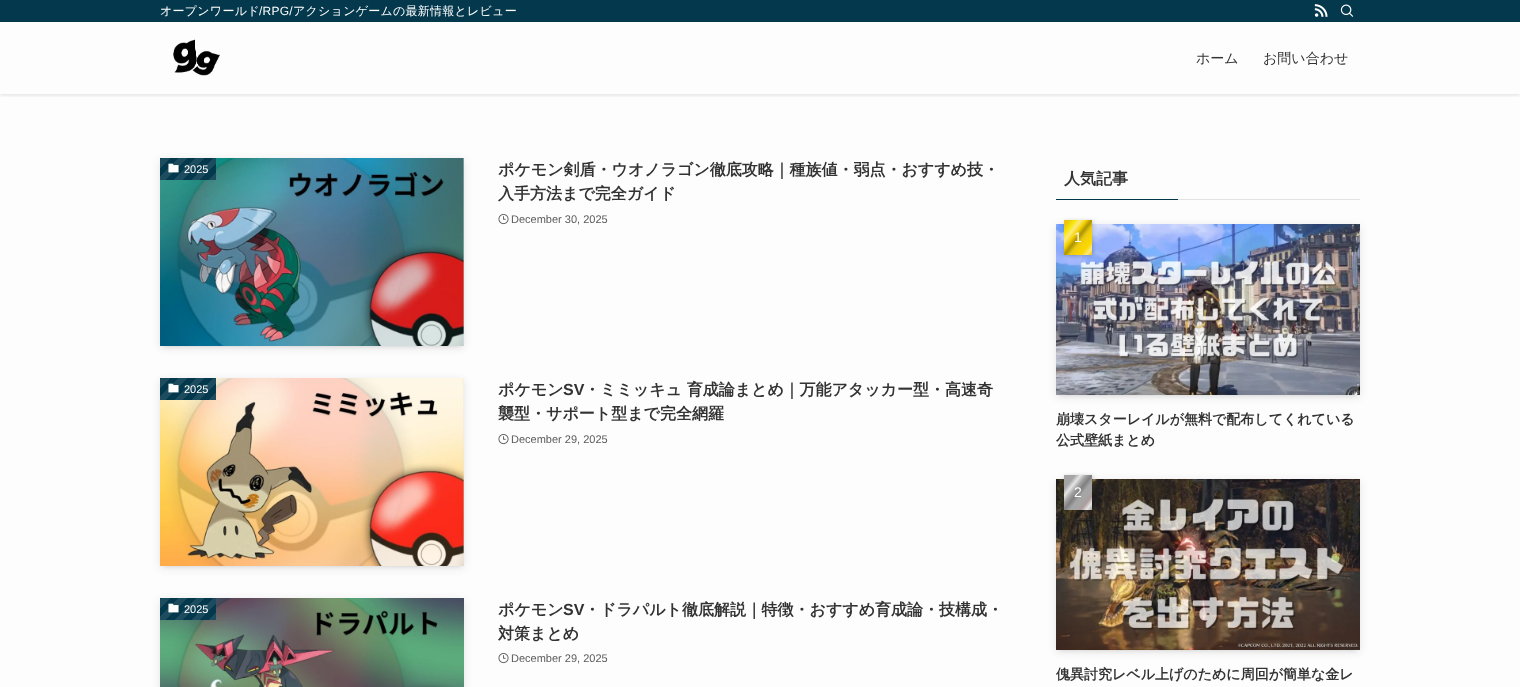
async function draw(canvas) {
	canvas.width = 1520;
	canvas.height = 687;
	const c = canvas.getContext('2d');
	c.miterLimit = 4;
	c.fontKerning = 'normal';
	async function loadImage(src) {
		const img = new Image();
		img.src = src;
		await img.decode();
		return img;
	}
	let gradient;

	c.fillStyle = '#fdfdfd';
	c.fillRect(0, 0, 1520, 687);
	c.save();
	c.beginPath();
	c.rect(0, 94, 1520, 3);
	c.clip();
	c.fillStyle = '#0000001f';
	c.filter = 'blur(2px)';
	c.beginPath();
	c.rect(0, 1, 1520, 94);
	c.fill();
	c.filter = 'none';
	c.restore();
	c.fillStyle = '#04384c';
	c.fillRect(0, 0, 1520, 22);
	c.letterSpacing = '0.25px';
	c.font = '500 12px WenQuanYi Zen Hei';
	c.fillStyle = '#fff';
	c.fillText('オープンワールド', 160, 15);
	c.font = '12px Liberation Sans';
	c.fillText('/RPG/', 259, 15);
	c.font = '500 12px WenQuanYi Zen Hei';
	c.fillText('アクションゲームの最新情報とレビュー', 293, 15);
	c.drawImage(await loadImage('img1.png'), 1314, 4, 14, 13);
	c.drawImage(await loadImage('img2.png'), 1340, 4, 14, 13);
	c.drawImage(await loadImage('img3.png'), 173, 39, 47, 37);
	c.letterSpacing = '0px';
	c.font = '500 14px WenQuanYi Zen Hei';
	c.fillStyle = '#333';
	c.fillText('ホーム', 1196, 63);
	c.fillText('お問い合わせ', 1263, 63);
	c.fillStyle = '#0000001a';
	c.filter = 'blur(2px)';
	c.beginPath();
	c.rect(164, 166, 296, 180);
	c.fill();
	c.filter = 'none';
	c.filter = 'blur(4px)';
	c.beginPath();
	c.rect(160, 160, 304, 188);
	c.fill();
	c.filter = 'none';
	c.drawImage(await loadImage('img4.png'), 160, 158, 304, 188);
	gradient = c.createLinearGradient(208, 189, 165, 146);
	gradient.addColorStop(0, '#1d4c5e');
	gradient.addColorStop(0.1, '#1d4c5e');
	gradient.addColorStop(0.1, '#04384c');
	gradient.addColorStop(0.2, '#04384c');
	gradient.addColorStop(0.2, '#1d4c5e');
	gradient.addColorStop(0.3, '#1d4c5e');
	gradient.addColorStop(0.3, '#04384c');
	gradient.addColorStop(0.4, '#04384c');
	gradient.addColorStop(0.4, '#1d4c5e');
	gradient.addColorStop(0.5, '#1d4c5e');
	gradient.addColorStop(0.5, '#04384c');
	gradient.addColorStop(0.6, '#04384c');
	gradient.addColorStop(0.6, '#1d4c5e');
	gradient.addColorStop(0.7, '#1d4c5e');
	gradient.addColorStop(0.7, '#04384c');
	gradient.addColorStop(0.8, '#04384c');
	gradient.addColorStop(0.8, '#1d4c5e');
	gradient.addColorStop(0.9, '#1d4c5e');
	gradient.addColorStop(0.9, '#04384c');
	gradient.addColorStop(1, '#04384c');
	c.fillStyle = gradient;
	c.fillRect(160, 158, 56, 22);
	c.drawImage(await loadImage('img5.png'), 168, 163, 11, 10);
	c.font = '11px Liberation Sans';
	c.fillStyle = '#fff';
	c.fillText('2025', 184, 173);
	c.font = 'bold 16px WenQuanYi Zen Hei';
	c.fillStyle = '#333';
	c.fillText('ポケモン剣盾・ウオノラゴン徹底攻略｜種族値・弱点・おすすめ技・', 498, 175);
	c.fillText('入手方法まで完全ガイド', 498, 199);
	c.drawImage(await loadImage('img6.png'), 498, 214, 11, 11);
	c.font = '11px Liberation Sans';
	c.fillStyle = '#5b5b5b';
	c.fillText('December 30, 2025', 511, 223);
	c.fillStyle = '#0000001a';
	c.filter = 'blur(2px)';
	c.beginPath();
	c.rect(164, 386, 296, 180);
	c.fill();
	c.filter = 'none';
	c.filter = 'blur(4px)';
	c.beginPath();
	c.rect(160, 380, 304, 188);
	c.fill();
	c.filter = 'none';
	c.drawImage(await loadImage('img7.png'), 160, 378, 304, 188);
	gradient = c.createLinearGradient(208, 409, 165, 366);
	gradient.addColorStop(0, '#1d4c5e');
	gradient.addColorStop(0.1, '#1d4c5e');
	gradient.addColorStop(0.1, '#04384c');
	gradient.addColorStop(0.2, '#04384c');
	gradient.addColorStop(0.2, '#1d4c5e');
	gradient.addColorStop(0.3, '#1d4c5e');
	gradient.addColorStop(0.3, '#04384c');
	gradient.addColorStop(0.4, '#04384c');
	gradient.addColorStop(0.4, '#1d4c5e');
	gradient.addColorStop(0.5, '#1d4c5e');
	gradient.addColorStop(0.5, '#04384c');
	gradient.addColorStop(0.6, '#04384c');
	gradient.addColorStop(0.6, '#1d4c5e');
	gradient.addColorStop(0.7, '#1d4c5e');
	gradient.addColorStop(0.7, '#04384c');
	gradient.addColorStop(0.8, '#04384c');
	gradient.addColorStop(0.8, '#1d4c5e');
	gradient.addColorStop(0.9, '#1d4c5e');
	gradient.addColorStop(0.9, '#04384c');
	gradient.addColorStop(1, '#04384c');
	c.fillStyle = gradient;
	c.fillRect(160, 378, 56, 22);
	c.drawImage(await loadImage('img5.png'), 168, 383, 11, 10);
	c.fillStyle = '#fff';
	c.fillText('2025', 184, 393);
	c.font = 'bold 16px WenQuanYi Zen Hei';
	c.fillStyle = '#333';
	c.fillText('ポケモン', 498, 395);
	c.font = 'bold 16px Liberation Sans';
	c.fillText('SV', 563, 395);
	c.font = 'bold 16px WenQuanYi Zen Hei';
	c.fillText('・ミミッキュ 育成論まとめ｜万能アタッカー型・高速奇', 584, 395);
	c.fillText('襲型・サポート型まで完全網羅', 498, 419);
	c.drawImage(await loadImage('img6.png'), 498, 434, 11, 11);
	c.font = '11px Liberation Sans';
	c.fillStyle = '#5b5b5b';
	c.fillText('December 29, 2025', 511, 443);
	c.fillStyle = '#0000001a';
	c.filter = 'blur(4px)';
	c.beginPath();
	c.rect(160, 600, 304, 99);
	c.fill();
	c.filter = 'none';
	c.drawImage(await loadImage('img8.png'), 160, 598, 304, 89);
	gradient = c.createLinearGradient(208, 629, 165, 586);
	gradient.addColorStop(0, '#1d4c5e');
	gradient.addColorStop(0.1, '#1d4c5e');
	gradient.addColorStop(0.1, '#04384c');
	gradient.addColorStop(0.2, '#04384c');
	gradient.addColorStop(0.2, '#1d4c5e');
	gradient.addColorStop(0.3, '#1d4c5e');
	gradient.addColorStop(0.3, '#04384c');
	gradient.addColorStop(0.4, '#04384c');
	gradient.addColorStop(0.4, '#1d4c5e');
	gradient.addColorStop(0.5, '#1d4c5e');
	gradient.addColorStop(0.5, '#04384c');
	gradient.addColorStop(0.6, '#04384c');
	gradient.addColorStop(0.6, '#1d4c5e');
	gradient.addColorStop(0.7, '#1d4c5e');
	gradient.addColorStop(0.7, '#04384c');
	gradient.addColorStop(0.8, '#04384c');
	gradient.addColorStop(0.8, '#1d4c5e');
	gradient.addColorStop(0.9, '#1d4c5e');
	gradient.addColorStop(0.9, '#04384c');
	gradient.addColorStop(1, '#04384c');
	c.fillStyle = gradient;
	c.fillRect(160, 598, 56, 22);
	c.drawImage(await loadImage('img5.png'), 168, 603, 11, 10);
	c.fillStyle = '#fff';
	c.fillText('2025', 184, 613);
	c.font = 'bold 16px WenQuanYi Zen Hei';
	c.fillStyle = '#333';
	c.fillText('ポケモン', 498, 615);
	c.font = 'bold 16px Liberation Sans';
	c.fillText('SV', 563, 615);
	c.font = 'bold 16px WenQuanYi Zen Hei';
	c.fillText('・ドラパルト徹底解説｜特徴・おすすめ育成論・技構成・', 584, 615);
	c.fillText('対策まとめ', 498, 639);
	c.drawImage(await loadImage('img6.png'), 498, 653, 11, 11);
	c.font = '11px Liberation Sans';
	c.fillStyle = '#5b5b5b';
	c.fillText('December 29, 2025', 511, 662);
	c.font = 'bold 16px WenQuanYi Zen Hei';
	c.fillStyle = '#333';
	c.fillText('人気記事', 1064, 184);
	c.fillStyle = '#04384c';
	c.fillRect(1056, 199, 122, 1);
	c.fillStyle = '#e2e2e2';
	c.fillRect(1178, 199, 182, 1);
	c.fillStyle = '#0000001a';
	c.filter = 'blur(2px)';
	c.beginPath();
	c.rect(1060, 232, 296, 163);
	c.fill();
	c.filter = 'none';
	c.filter = 'blur(4px)';
	c.beginPath();
	c.rect(1056, 226, 304, 171);
	c.fill();
	c.filter = 'none';
	c.drawImage(await loadImage('img9.png'), 1056, 224, 304, 171);
	c.fillStyle = '#00000033';
	c.filter = 'blur(2px)';
	c.beginPath();
	c.rect(1065, 221, 28, 35);
	c.fill();
	c.filter = 'none';
	gradient = c.createLinearGradient(1095, 251, 1061, 224);
	gradient.addColorStop(0, '#f7bf05');
	gradient.addColorStop(0.1, '#fcea7f');
	gradient.addColorStop(0.2, '#fcd700');
	gradient.addColorStop(0.3, '#f7d305');
	gradient.addColorStop(0.4, '#eaca12');
	gradient.addColorStop(0.5, '#ac9303');
	gradient.addColorStop(0.6, '#f7d305');
	gradient.addColorStop(0.7, '#fcea7f');
	gradient.addColorStop(0.8, '#f7e705');
	gradient.addColorStop(0.9, '#eaca12');
	gradient.addColorStop(1, '#f7bf05');
	c.fillStyle = gradient;
	c.fillRect(1064, 220, 28, 35);
	c.font = '14px Liberation Sans';
	c.fillStyle = '#fff';
	c.fillText('1', 1074, 242);
	c.font = 'bold 14px WenQuanYi Zen Hei';
	c.fillStyle = '#333';
	c.fillText('崩壊スターレイルが無料で配布してくれている', 1056, 424);
	c.fillText('公式壁紙まとめ', 1056, 445);
	c.fillStyle = '#0000001a';
	c.filter = 'blur(2px)';
	c.beginPath();
	c.rect(1060, 487, 296, 163);
	c.fill();
	c.filter = 'none';
	c.filter = 'blur(4px)';
	c.beginPath();
	c.rect(1056, 481, 304, 171);
	c.fill();
	c.filter = 'none';
	c.drawImage(await loadImage('img10.png'), 1056, 479, 304, 171);
	c.fillStyle = '#00000033';
	c.filter = 'blur(2px)';
	c.beginPath();
	c.rect(1065, 476, 28, 35);
	c.fill();
	c.filter = 'none';
	gradient = c.createLinearGradient(1095, 506, 1061, 479);
	gradient.addColorStop(0, '#a5a5a5');
	gradient.addColorStop(0.1, '#e5e5e5');
	gradient.addColorStop(0.2, '#ae9c9c');
	gradient.addColorStop(0.3, '#a5a5a5');
	gradient.addColorStop(0.4, '#a5a5a5');
	gradient.addColorStop(0.5, '#7f7f7f');
	gradient.addColorStop(0.6, '#a5a5a5');
	gradient.addColorStop(0.7, '#e5e5e5');
	gradient.addColorStop(0.8, '#a5a5a5');
	gradient.addColorStop(1, '#a5a5a5');
	c.fillStyle = gradient;
	c.fillRect(1064, 475, 28, 35);
	c.font = '14px Liberation Sans';
	c.fillStyle = '#fff';
	c.fillText('2', 1074, 497);
	c.font = 'bold 14px WenQuanYi Zen Hei';
	c.fillStyle = '#333';
	c.fillText('傀異討究レベル上げのために周回が簡単な金レ', 1056, 679);
}

draw(document.querySelector('canvas'));
